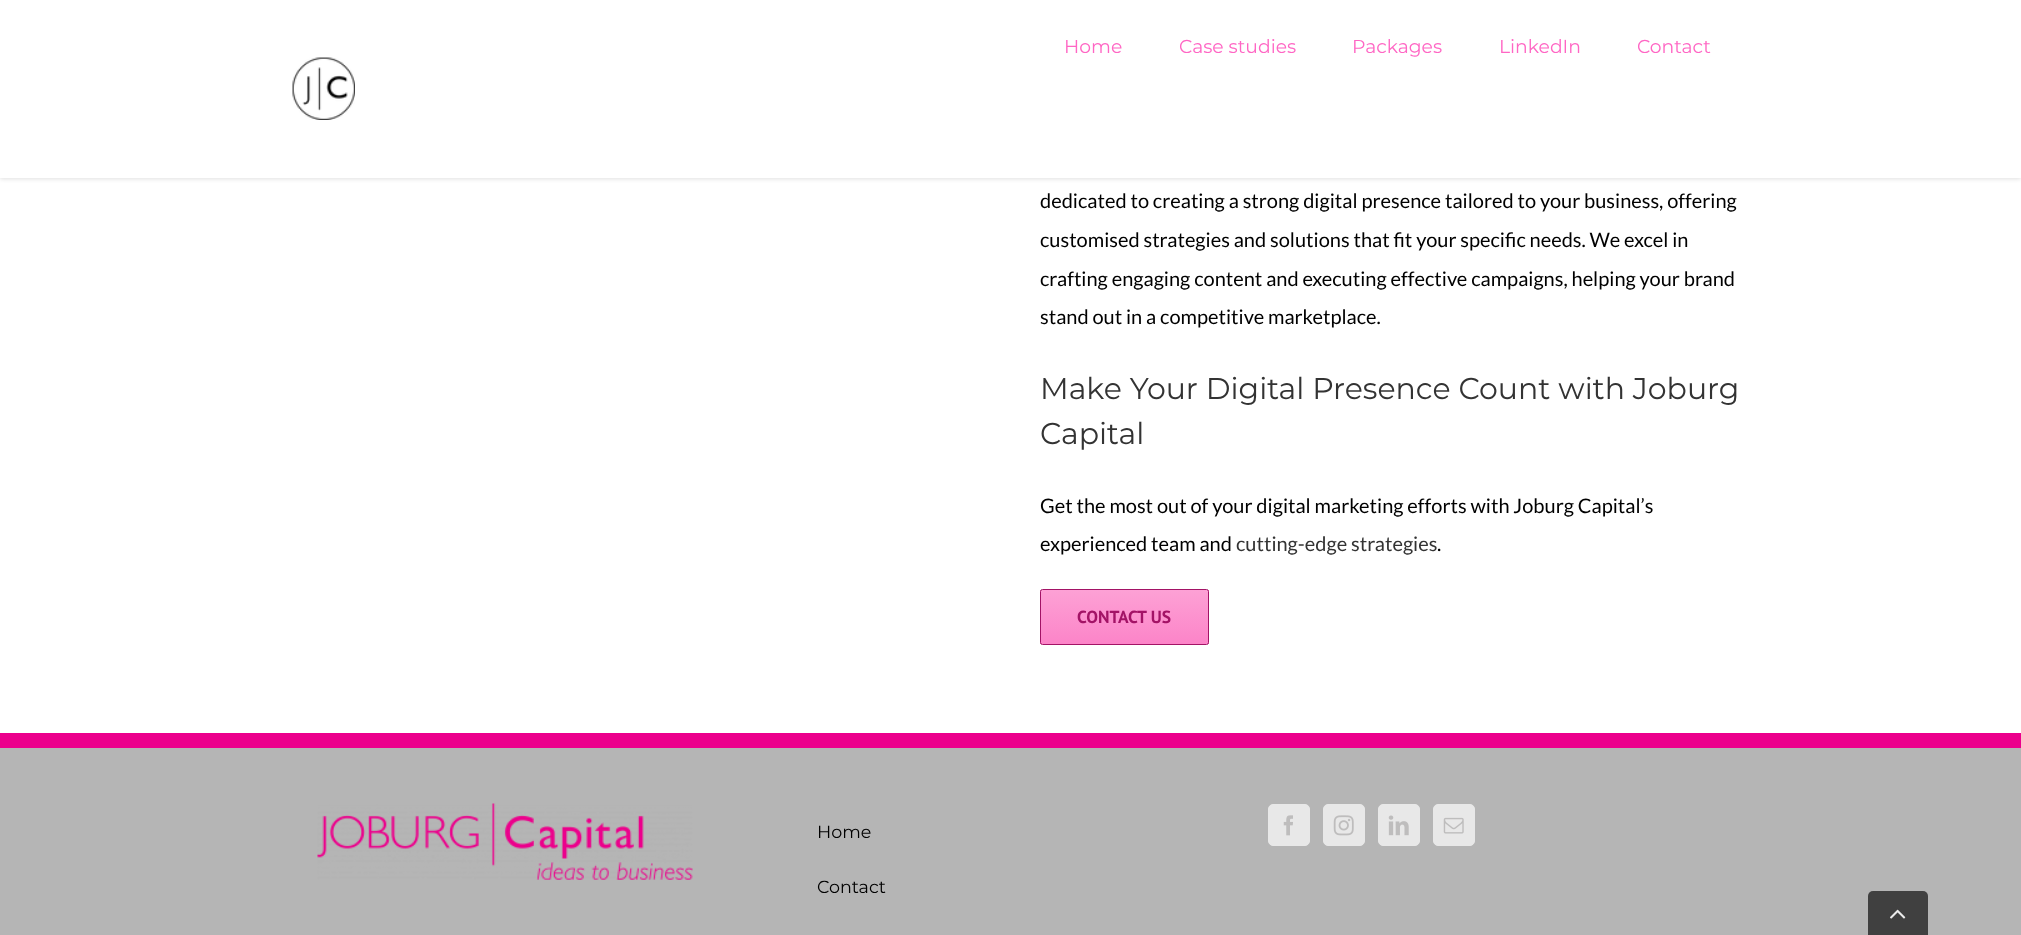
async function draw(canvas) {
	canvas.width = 2021;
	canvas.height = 935;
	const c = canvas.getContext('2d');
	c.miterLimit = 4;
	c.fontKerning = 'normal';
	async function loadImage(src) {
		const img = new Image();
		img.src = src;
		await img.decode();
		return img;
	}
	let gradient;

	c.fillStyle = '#fff';
	c.fillRect(0, 0, 2021, 935);
	c.fillStyle = '#0000001f';
	c.filter = 'blur(2px)';
	c.beginPath();
	c.rect(0, 1, 2021, 178);
	c.fill();
	c.filter = 'none';
	c.fillStyle = '#fff';
	c.fillRect(0, 0, 2021, 178);
	c.font = '100 18.75px Montserrat';
	c.fillStyle = '#ff66c4';
	for (const [text, x, y] of [
		['Home', 1064, 53],
		['Case studies', 1179, 53],
		['Packages', 1352, 53],
		['LinkedIn', 1499, 53],
		['Contact', 1637, 53],
	]) {
		c.fillText(text, x, y);
	}
	c.drawImage(await loadImage('img1.png'), 292, 57, 63, 63);
	c.font = '20px Lato';
	c.fillStyle = '#000';
	for (const [text, x, y] of [
		['dedicated to creating a strong digital presence tailored to your business, offering', 1040, 208],
		['customised strategies and solutions that fit your specific needs. We excel in', 1040, 247],
		['crafting engaging content and executing effective campaigns, helping your brand', 1040, 286],
		['stand out in a competitive marketplace.', 1040, 324],
	]) {
		c.fillText(text, x, y);
	}
	c.font = '100 30px Montserrat';
	c.fillStyle = '#333';
	c.fillText('Make Your Digital Presence Count with Joburg', 1040, 399);
	c.fillText('Capital', 1040, 444);
	c.font = '20px Lato';
	c.fillStyle = '#000';
	c.fillText('Get the most out of your digital marketing efforts with Joburg Capital’s', 1040, 513);
	c.fillText('experienced team and', 1040, 551);
	c.fillStyle = '#333';
	c.fillText('cutting-edge strategies', 1236, 551);
	c.fillStyle = '#000';
	c.fillText('.', 1437, 551);
	c.save();
	c.beginPath();
	c.roundRect(1040, 589, 169, 56, 2.5);
	c.clip();
	gradient = c.createLinearGradient(1124, 644, 1124, 590);
	gradient.addColorStop(0, '#fc84c8');
	gradient.addColorStop(1, '#fda1d5');
	c.fillStyle = gradient;
	c.fillRect(1040, 590, 169, 54);
	c.restore();
	c.beginPath();
	c.roundRect(1040.5, 589.5, 168, 55, 2);
	c.strokeStyle = '#a31366';
	c.stroke();
	c.font = 'bold 17.5px PT Sans';
	c.fillStyle = '#a31366';
	c.fillText('CONTACT US', 1077, 623);
	c.fillStyle = '#b5b5b5';
	c.fillRect(0, 748, 2021, 187);
	c.fillStyle = '#ec008c';
	c.fillRect(0, 733, 2021, 15);
	c.drawImage(await loadImage('img2.png'), 317, 803, 376, 77);
	c.font = '100 17.5px Montserrat';
	c.fillStyle = '#000';
	c.fillText('Home', 817, 838);
	c.fillText('Contact', 817, 893);
	c.fillStyle = '#e8e8e8';
	c.beginPath();
	c.roundRect(1268.5, 804.5, 41, 41, 4.5);
	c.fill();
	c.strokeStyle = '#e8e8e8';
	c.stroke();
	c.drawImage(await loadImage('img3.png'), 1283, 815, 10, 21);
	c.beginPath();
	c.roundRect(1323.5, 804.5, 41, 41, 4.5);
	c.fill();
	c.stroke();
	c.drawImage(await loadImage('img4.png'), 1333, 815, 21, 21);
	c.beginPath();
	c.roundRect(1378.5, 804.5, 41, 41, 4.5);
	c.fill();
	c.stroke();
	c.drawImage(await loadImage('img5.png'), 1388, 815, 21, 21);
	c.beginPath();
	c.roundRect(1433.5, 804.5, 41, 41, 4.5);
	c.fill();
	c.stroke();
	c.drawImage(await loadImage('img6.png'), 1443, 817, 21, 17);
	c.fillStyle = '#404040';
	c.beginPath();
	c.roundRect(1868, 891, 60, 44, [5, 5, 0, 0]);
	c.fill();
	c.drawImage(await loadImage('img7.png'), 1890, 909, 16, 10);
}

draw(document.querySelector('canvas'));
